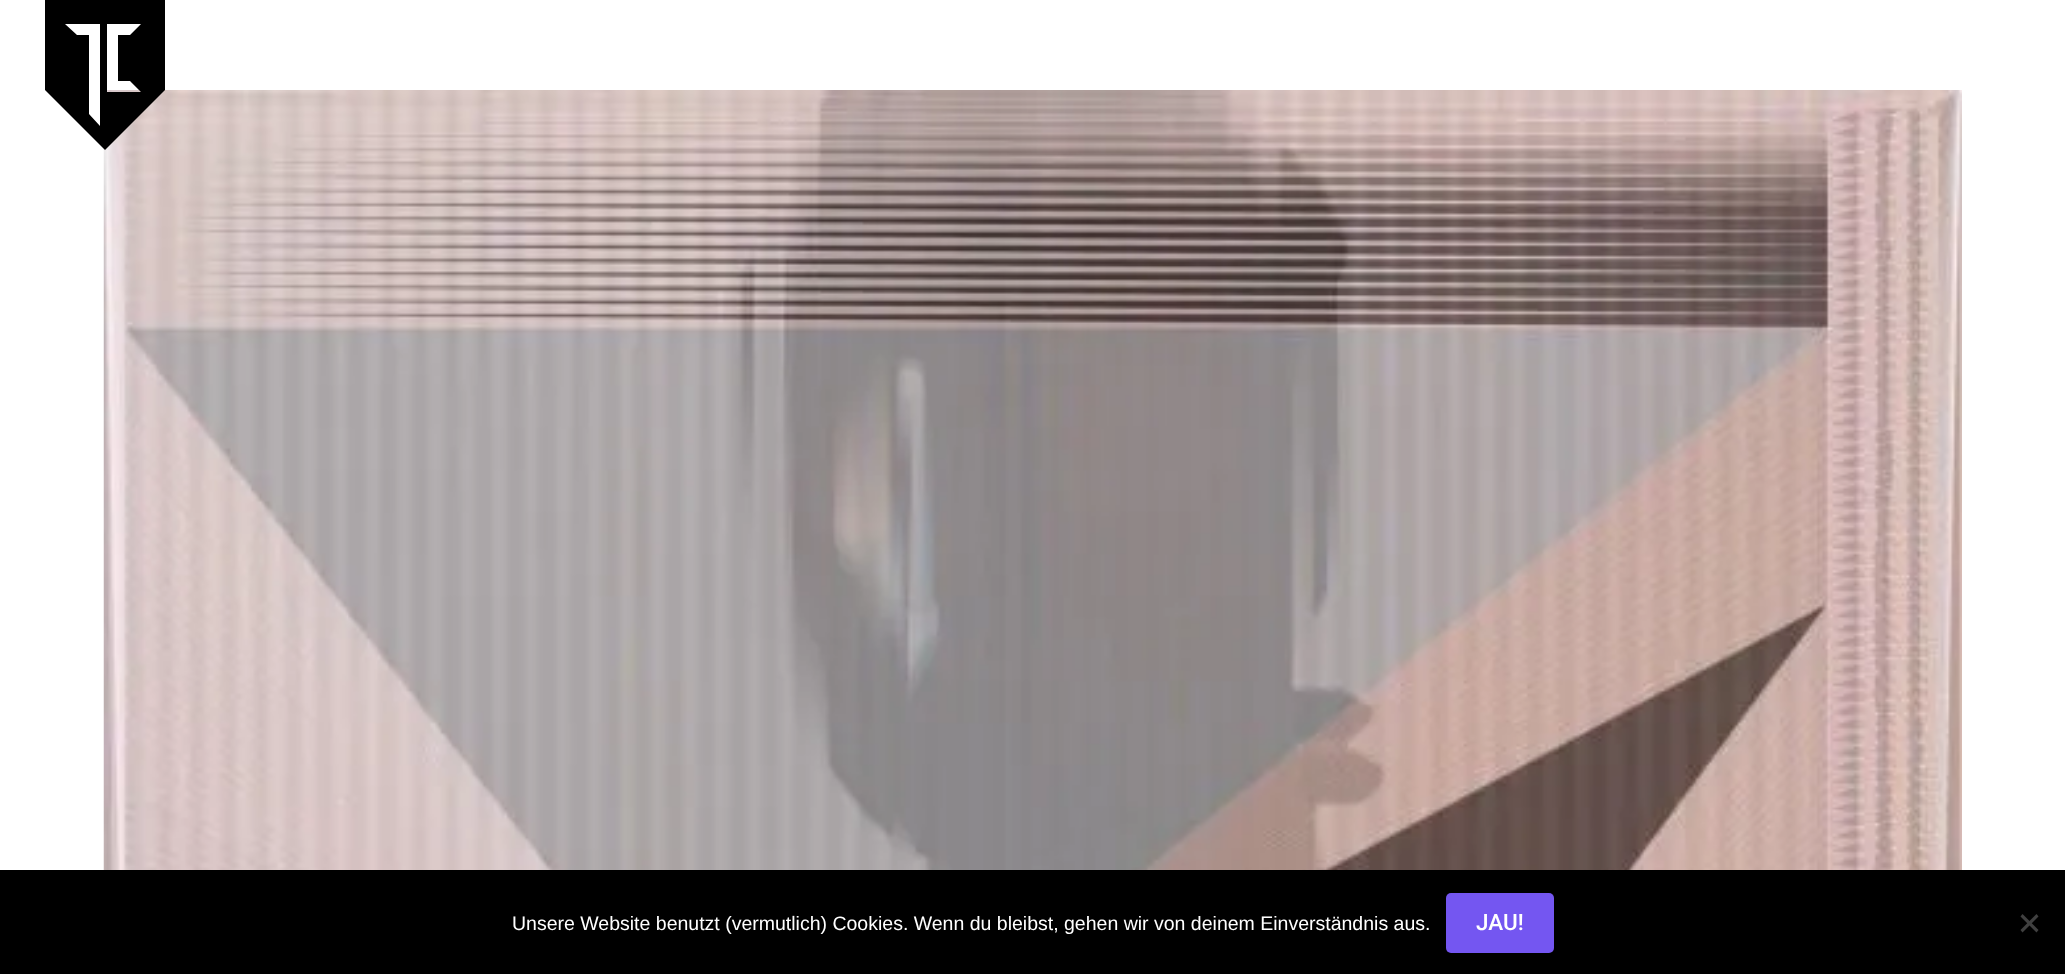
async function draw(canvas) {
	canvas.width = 2065;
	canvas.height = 974;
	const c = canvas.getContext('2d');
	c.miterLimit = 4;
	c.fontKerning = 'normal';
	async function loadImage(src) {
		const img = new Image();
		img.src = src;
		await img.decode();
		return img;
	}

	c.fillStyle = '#fff';
	c.fillRect(0, 0, 2065, 974);
	c.drawImage(await loadImage('img1.png'), 103, 90, 1859, 780);
	c.fillStyle = '#000';
	c.beginPath();
	c.moveTo(165, 0);
	c.lineTo(45, 0);
	c.lineTo(45, 90);
	c.lineTo(105, 150);
	c.lineTo(165, 90);
	c.closePath();
	c.moveTo(100, 24);
	c.lineTo(100, 126);
	c.lineTo(89, 114);
	c.lineTo(89, 35);
	c.lineTo(77, 35);
	c.lineTo(65, 24);
	c.closePath();
	c.moveTo(130, 81);
	c.lineTo(141, 92);
	c.lineTo(107, 92);
	c.lineTo(107, 24);
	c.lineTo(141, 24);
	c.lineTo(130, 35);
	c.lineTo(118, 35);
	c.lineTo(118, 81);
	c.closePath();
	c.fill();
	c.fillRect(0, 870, 2065, 104);
	c.font = '19.5px Liberation Sans';
	c.fillStyle = '#fff';
	c.fillText('Unsere Website benutzt (vermutlich) Cookies. Wenn du bleibst, gehen wir von deinem Einverständnis aus.', 512, 930);
	c.fillStyle = '#7456f1';
	c.beginPath();
	c.roundRect(1446, 893, 108, 60, 5);
	c.fill();
	c.font = '500 22.5px Roboto';
	c.fillStyle = '#fff';
	c.fillText('JAU!', 1476, 930);
	c.fillStyle = '#404040';
	c.beginPath();
	c.moveTo(2036.5, 914);
	c.lineTo(2038.5, 916.5);
	c.lineTo(2022.5, 932.5);
	c.lineTo(2020.5, 930);
	c.closePath();
	c.fill();
	c.beginPath();
	c.moveTo(2020.5, 916.5);
	c.lineTo(2022.5, 914);
	c.lineTo(2038.5, 930);
	c.lineTo(2036.5, 932.5);
	c.closePath();
	c.fill();
}

draw(document.querySelector('canvas'));
